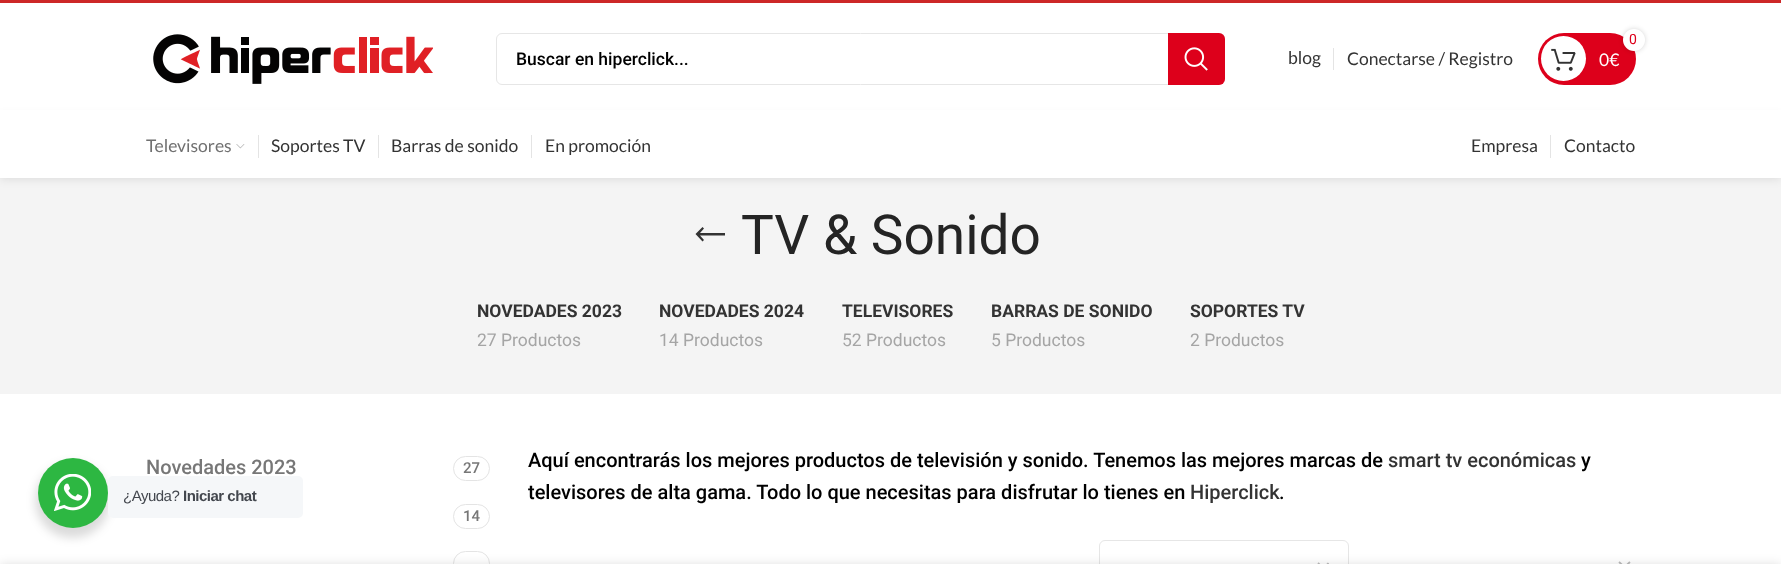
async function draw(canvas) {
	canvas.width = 1781;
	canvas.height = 564;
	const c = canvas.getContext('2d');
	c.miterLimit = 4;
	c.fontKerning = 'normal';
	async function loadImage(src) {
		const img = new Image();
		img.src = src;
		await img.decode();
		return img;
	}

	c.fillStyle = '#fff';
	c.fillRect(0, 0, 1781, 564);
	c.fillStyle = '#cd2828';
	c.fillRect(0, 0, 1781, 3);
	c.drawImage(await loadImage('img1.png'), 153, 34, 280, 50);
	c.beginPath();
	c.roundRect(496.5, 33.5, 728, 51, 5.5);
	c.strokeStyle = '#e6e6e6';
	c.stroke();
	c.font = '500 17.5px Roboto';
	c.fillStyle = '#000';
	c.fillText('Buscar en hiperclick...', 516, 65);
	c.fillStyle = '#dd001b';
	c.beginPath();
	c.roundRect(1168, 33, 57, 52, [0, 6, 6, 0]);
	c.fill();
	c.drawImage(await loadImage('img2.png'), 1184, 47, 24, 24);
	c.font = '17.5px Lato';
	c.fillStyle = '#333';
	c.fillText('blog', 1288, 64);
	c.fillStyle = '#e4e4e4';
	c.fillRect(1333, 48, 1, 22);
	c.fillStyle = '#333';
	c.fillText('Conectarse / Registro', 1347, 65);
	c.fillStyle = '#dd001b';
	c.beginPath();
	c.roundRect(1538, 33, 98, 52, 26);
	c.fill();
	c.fillStyle = '#fff';
	c.beginPath();
	c.arc(1563.5, 58.5, 22.5, 0, 2 * Math.PI);
	c.fill();
	c.fillStyle = '#0000002b';
	c.filter = 'blur(2.5px)';
	c.beginPath();
	c.roundRect(1623, 29, 22, 22, 11);
	c.fill();
	c.filter = 'none';
	c.fillStyle = '#fff';
	c.beginPath();
	c.arc(1634, 40, 11, 0, 2 * Math.PI);
	c.fill();
	c.font = '14px Roboto';
	c.fillStyle = '#dd001b';
	c.fillText('0', 1629, 44);
	c.drawImage(await loadImage('img3.png'), 1551, 48, 25, 23);
	c.font = '17.5px Lato';
	c.fillStyle = '#fff';
	c.fillText('0€', 1599, 66);
	c.fillStyle = '#f4f4f4';
	c.fillRect(0, 178, 1781, 216);
	c.fillStyle = '#0000001a';
	c.filter = 'blur(5px)';
	c.beginPath();
	c.rect(0, 116, 1781, 63);
	c.fill();
	c.filter = 'none';
	c.fillStyle = '#fff';
	c.fillRect(0, 110, 1781, 68);
	c.fillStyle = '#707070';
	c.fillText('Televisores', 146, 152);
	c.drawImage(await loadImage('img4.png'), 236, 144, 9, 5);
	c.fillStyle = '#e4e4e4';
	c.fillRect(258, 135, 1, 23);
	c.fillStyle = '#333';
	c.fillText('Soportes TV', 271, 152);
	c.fillStyle = '#e4e4e4';
	c.fillRect(378, 135, 1, 23);
	c.fillStyle = '#333';
	c.fillText('Barras de sonido', 391, 152);
	c.fillStyle = '#e4e4e4';
	c.fillRect(531, 135, 1, 23);
	c.fillStyle = '#333';
	c.fillText('En promoción', 545, 152);
	c.fillText('Empresa', 1471, 152);
	c.fillStyle = '#e4e4e4';
	c.fillRect(1550, 135, 1, 23);
	c.fillStyle = '#333';
	c.fillText('Contacto', 1564, 152);
	c.beginPath();
	c.moveTo(704, 240);
	c.lineTo(700, 235.5);
	c.lineTo(725, 235.5);
	c.lineTo(725, 233);
	c.lineTo(700, 233);
	c.lineTo(704, 228.5);
	c.lineTo(702.5, 227);
	c.lineTo(695.5, 234);
	c.lineTo(702.5, 241.5);
	c.closePath();
	c.fill();
	c.font = '55px Roboto';
	c.fillStyle = '#242424';
	c.fillText('TV & Sonido', 741, 254);
	c.font = 'bold 17.5px Roboto';
	c.fillStyle = '#333';
	c.fillText('NOVEDADES 2023', 477, 317);
	c.font = '17.5px Roboto';
	c.fillStyle = '#a5a5a5';
	c.fillText('27 Productos', 477, 346);
	c.font = 'bold 17.5px Roboto';
	c.fillStyle = '#333';
	c.fillText('NOVEDADES 2024', 659, 317);
	c.font = '17.5px Roboto';
	c.fillStyle = '#a5a5a5';
	c.fillText('14 Productos', 659, 346);
	c.font = 'bold 17.5px Roboto';
	c.fillStyle = '#333';
	c.fillText('TELEVISORES', 842, 317);
	c.font = '17.5px Roboto';
	c.fillStyle = '#a5a5a5';
	c.fillText('52 Productos', 842, 346);
	c.font = 'bold 17.5px Roboto';
	c.fillStyle = '#333';
	c.fillText('BARRAS DE SONIDO', 991, 317);
	c.font = '17.5px Roboto';
	c.fillStyle = '#a5a5a5';
	c.fillText('5 Productos', 991, 346);
	c.font = 'bold 17.5px Roboto';
	c.fillStyle = '#333';
	c.fillText('SOPORTES TV', 1190, 317);
	c.font = '17.5px Roboto';
	c.fillStyle = '#a5a5a5';
	c.fillText('2 Productos', 1190, 346);
	c.font = '500 20px Roboto';
	c.fillStyle = '#777';
	c.fillText('Novedades 2023', 146, 474);
	c.beginPath();
	c.roundRect(453.5, 456.5, 36, 24, 12);
	c.strokeStyle = '#e4e4e4';
	c.stroke();
	c.font = '500 15px Roboto';
	c.fillText('27', 463, 473);
	c.beginPath();
	c.roundRect(453.5, 504.5, 36, 24, 12);
	c.stroke();
	c.fillText('14', 463, 521);
	c.beginPath();
	c.roundRect(453.5, 551.5, 36, 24, 12);
	c.stroke();
	c.font = '500 20px Roboto';
	c.fillStyle = '#000';
	c.fillText('Aquí encontrarás los mejores productos de televisión y sonido. Tenemos las mejores marcas de', 528, 467);
	c.fillStyle = '#333';
	c.fillText('smart tv económicas', 1388, 467);
	c.fillStyle = '#000';
	c.fillText('y', 1581, 467);
	c.fillText('televisores de alta gama. Todo lo que necesitas para disfrutar lo tienes en', 528, 499);
	c.fillStyle = '#333';
	c.fillText('Hiperclick', 1190, 499);
	c.fillStyle = '#000';
	c.fillText('.', 1279, 499);
	c.beginPath();
	c.moveTo(1318, 563);
	c.lineTo(1323.5, 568.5);
	c.lineTo(1328.5, 563);
	c.strokeStyle = '#bbb';
	c.lineWidth = 1.8;
	c.stroke();
	c.beginPath();
	c.roundRect(1099.5, 540.5, 249, 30, 5.5);
	c.strokeStyle = '#e6e6e6';
	c.lineWidth = 1;
	c.stroke();
	c.beginPath();
	c.moveTo(1619, 562);
	c.lineTo(1624.5, 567);
	c.lineTo(1630, 562);
	c.strokeStyle = '#bbb';
	c.lineWidth = 1.8;
	c.stroke();
	c.fillStyle = '#00000024';
	c.filter = 'blur(5px)';
	c.beginPath();
	c.roundRect(35, 463, 75, 75, 37.5);
	c.fill();
	c.filter = 'none';
	c.fillStyle = '#2db742';
	c.beginPath();
	c.arc(73, 493, 35, 0, 2 * Math.PI);
	c.fill();
	c.drawImage(await loadImage('img5.png'), 54, 474, 37, 37);
	c.fillStyle = '#f5f7f9';
	c.beginPath();
	c.roundRect(108, 476, 195, 42, 5);
	c.fill();
	c.letterSpacing = '-0.5px';
	c.font = '15px Liberation Sans';
	c.fillStyle = '#43474e';
	c.fillText('¿Ayuda?', 123, 501);
	c.font = 'bold 15px Liberation Sans';
	c.fillText('Iniciar chat', 183, 501);
	c.fillStyle = '#00000024';
	c.filter = 'blur(5.5px)';
	c.beginPath();
	c.rect(0, 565, 1781, 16);
	c.fill();
	c.filter = 'none';
}

draw(document.querySelector('canvas'));
